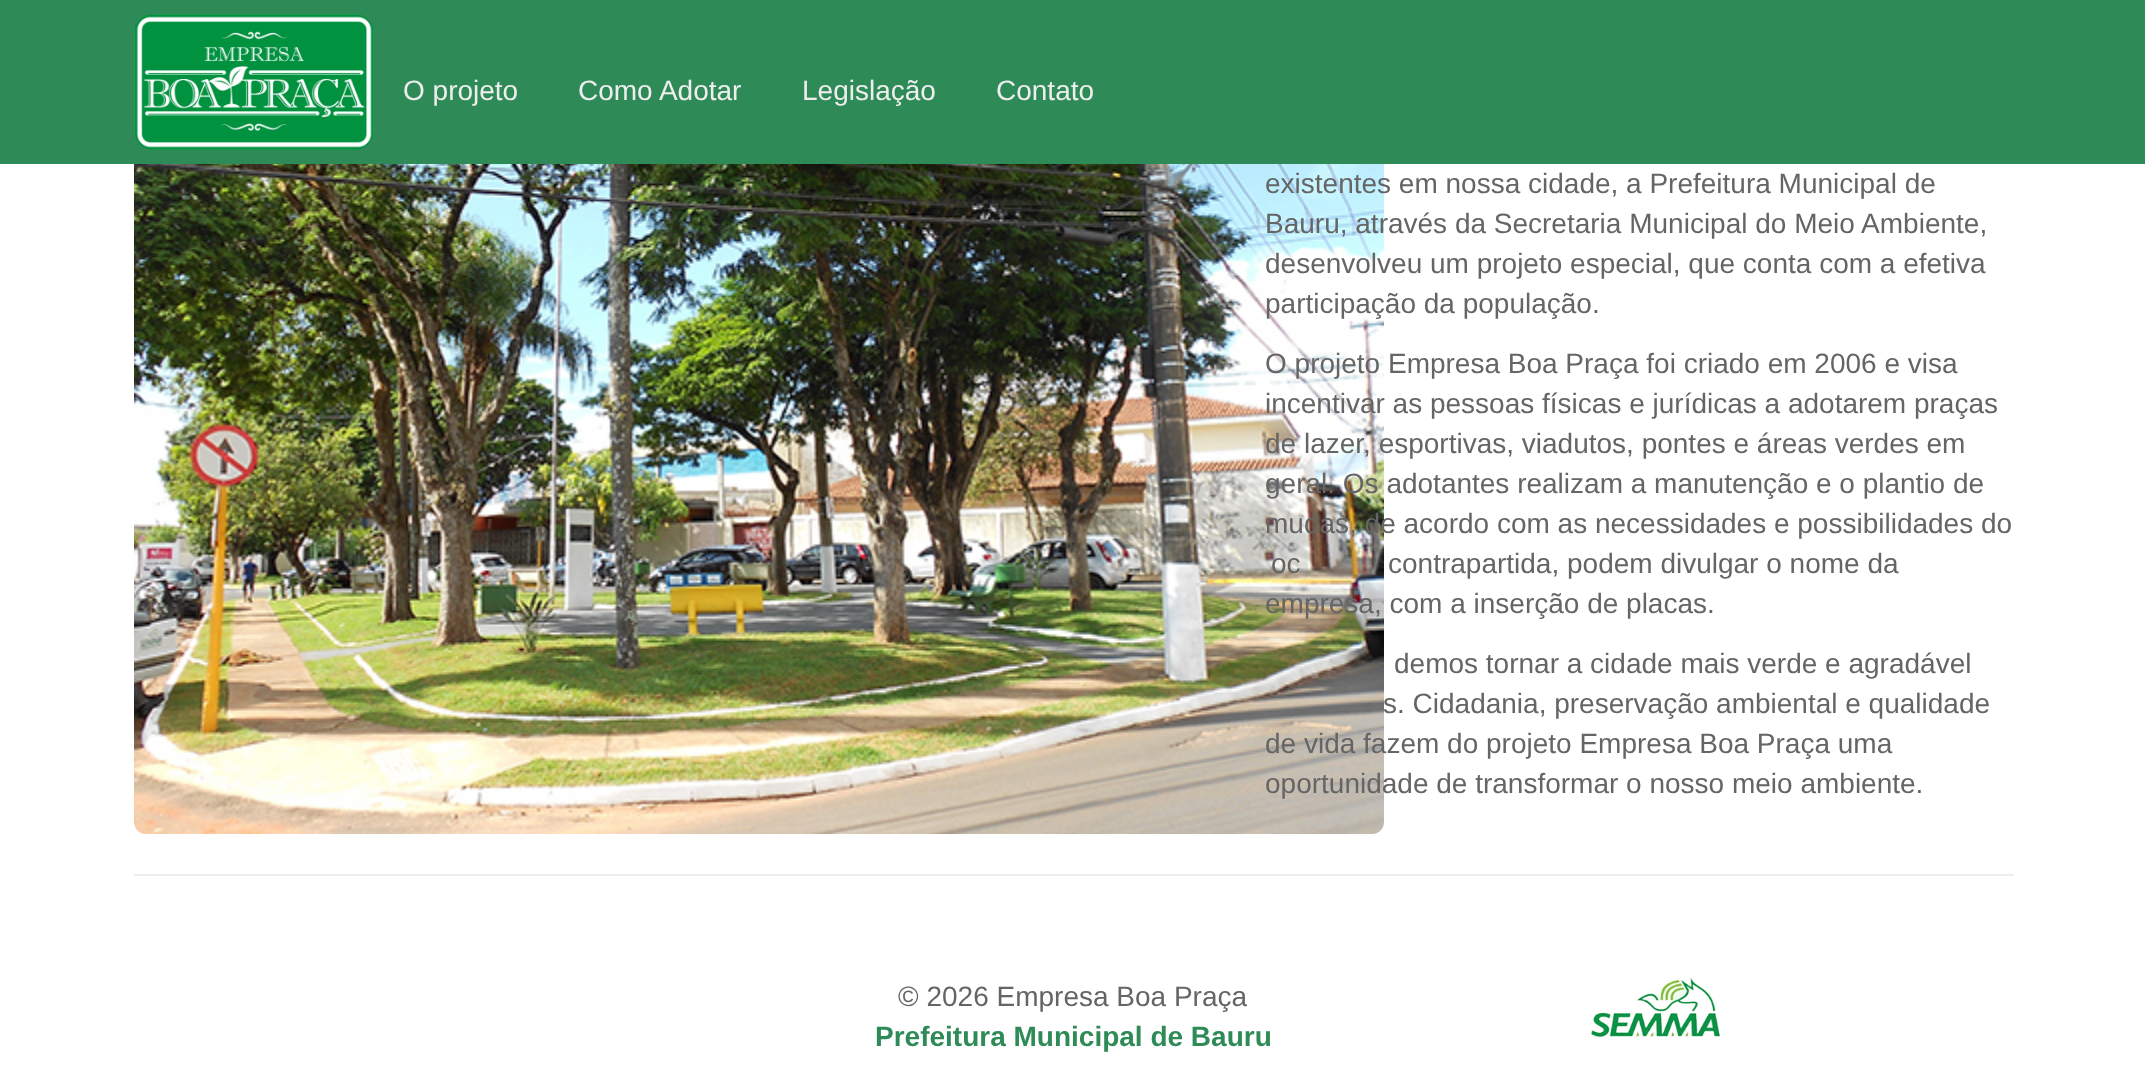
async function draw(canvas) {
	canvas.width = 2145;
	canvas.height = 1070;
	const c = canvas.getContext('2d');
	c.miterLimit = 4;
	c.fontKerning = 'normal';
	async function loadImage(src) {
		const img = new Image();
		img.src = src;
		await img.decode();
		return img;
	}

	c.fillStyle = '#fff';
	c.fillRect(0, 0, 2145, 1070);
	c.fillStyle = '#2e8b57';
	c.fillRect(0, 0, 2145, 164);
	c.drawImage(await loadImage('img1.png'), 134, 14, 240, 136);
	c.font = '28px Liberation Sans';
	c.fillStyle = '#eee';
	for (const [text, x, y] of [
		['O projeto', 403, 100],
		['Como Adotar', 578, 100],
		['Legislação', 802, 100],
		['Contato', 996, 100],
	]) {
		c.fillText(text, x, y);
	}
	c.drawImage(await loadImage('img2.png'), 134, 164, 1250, 670);
	c.fillStyle = '#656565';
	for (const [text, x, y] of [
		['existentes em nossa cidade, a Prefeitura Municipal de', 1265, 193],
		['Bauru, através da Secretaria Municipal do Meio Ambiente,', 1265, 233],
		['desenvolveu um projeto especial, que conta com a efetiva', 1265, 273],
		['participação da população.', 1265, 313],
		['O projeto Empresa Boa Praça foi criado em 2006 e visa', 1265, 373],
		['incentivar as pessoas físicas e jurídicas a adotarem praças', 1265, 413],
		['de lazer, esportivas, viadutos, pontes e áreas verdes em', 1265, 453],
		['geral. Os adotantes realizam a manutenção e o plantio de', 1265, 493],
		['mudas, de acordo com as necessidades e possibilidades do', 1265, 533],
		['oc', 1271, 573],
		['contrapartida, podem divulgar o nome da', 1388, 573],
		['empresa, com a inserção de placas.', 1265, 613],
		['demos tornar a cidade mais verde e agradável', 1394, 673],
		['s. Cidadania, preservação ambiental e qualidade', 1383, 713],
		['de vida fazem do projeto Empresa Boa Praça uma', 1265, 753],
		['oportunidade de transformar o nosso meio ambiente.', 1265, 793],
	]) {
		c.fillText(text, x, y);
	}
	c.fillStyle = '#eee';
	c.fillRect(134, 874, 1880, 2);
	c.fillStyle = '#656565';
	c.fillText('© 2026 Empresa Boa Praça', 898, 1006);
	c.font = 'bold 28px Liberation Sans';
	c.fillStyle = '#2e8b57';
	c.fillText('Prefeitura Municipal de Bauru', 875, 1046);
	c.drawImage(await loadImage('img3.png'), 1591, 977, 130, 61);
}

draw(document.querySelector('canvas'));
